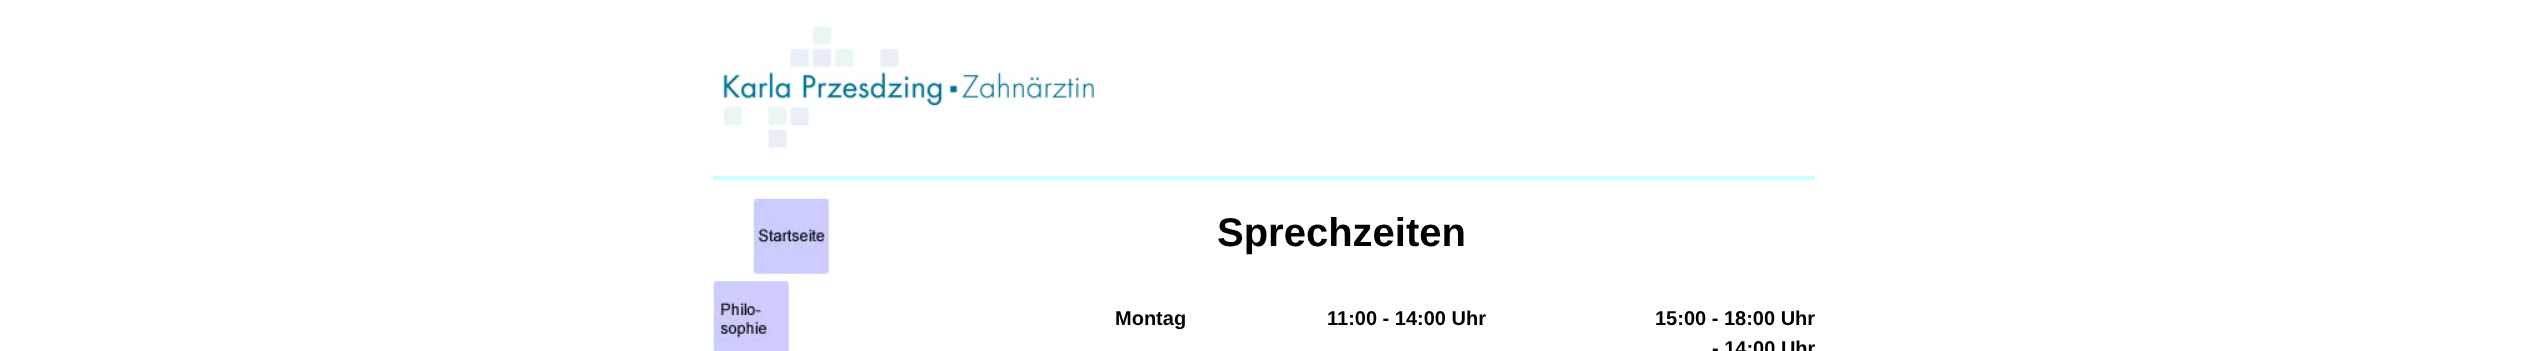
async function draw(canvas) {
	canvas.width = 2527;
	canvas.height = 351;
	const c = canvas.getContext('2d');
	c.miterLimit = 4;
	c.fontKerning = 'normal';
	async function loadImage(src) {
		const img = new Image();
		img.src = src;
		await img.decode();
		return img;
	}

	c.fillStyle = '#fff';
	c.fillRect(0, 0, 2527, 351);
	c.drawImage(await loadImage('img1.png'), 723, 26, 371, 122);
	c.fillStyle = '#cff';
	c.fillRect(713, 176, 1102, 4);
	c.drawImage(await loadImage('img2.png'), 753, 198, 76, 76);
	c.drawImage(await loadImage('img3.png'), 713, 281, 76, 70);
	c.font = 'bold 40px Liberation Sans';
	c.fillStyle = '#000';
	c.fillText('Sprechzeiten', 1217, 246);
	c.font = 'bold 20px Liberation Sans';
	for (const [text, x, y] of [
		['Montag', 1115, 325],
		['11:00 - 14:00 Uhr', 1327, 325],
		['15:00 - 18:00 Uhr', 1655, 325],
		['- 14:00 Uhr', 1712, 355],
	]) {
		c.fillText(text, x, y);
	}
}

draw(document.querySelector('canvas'));
